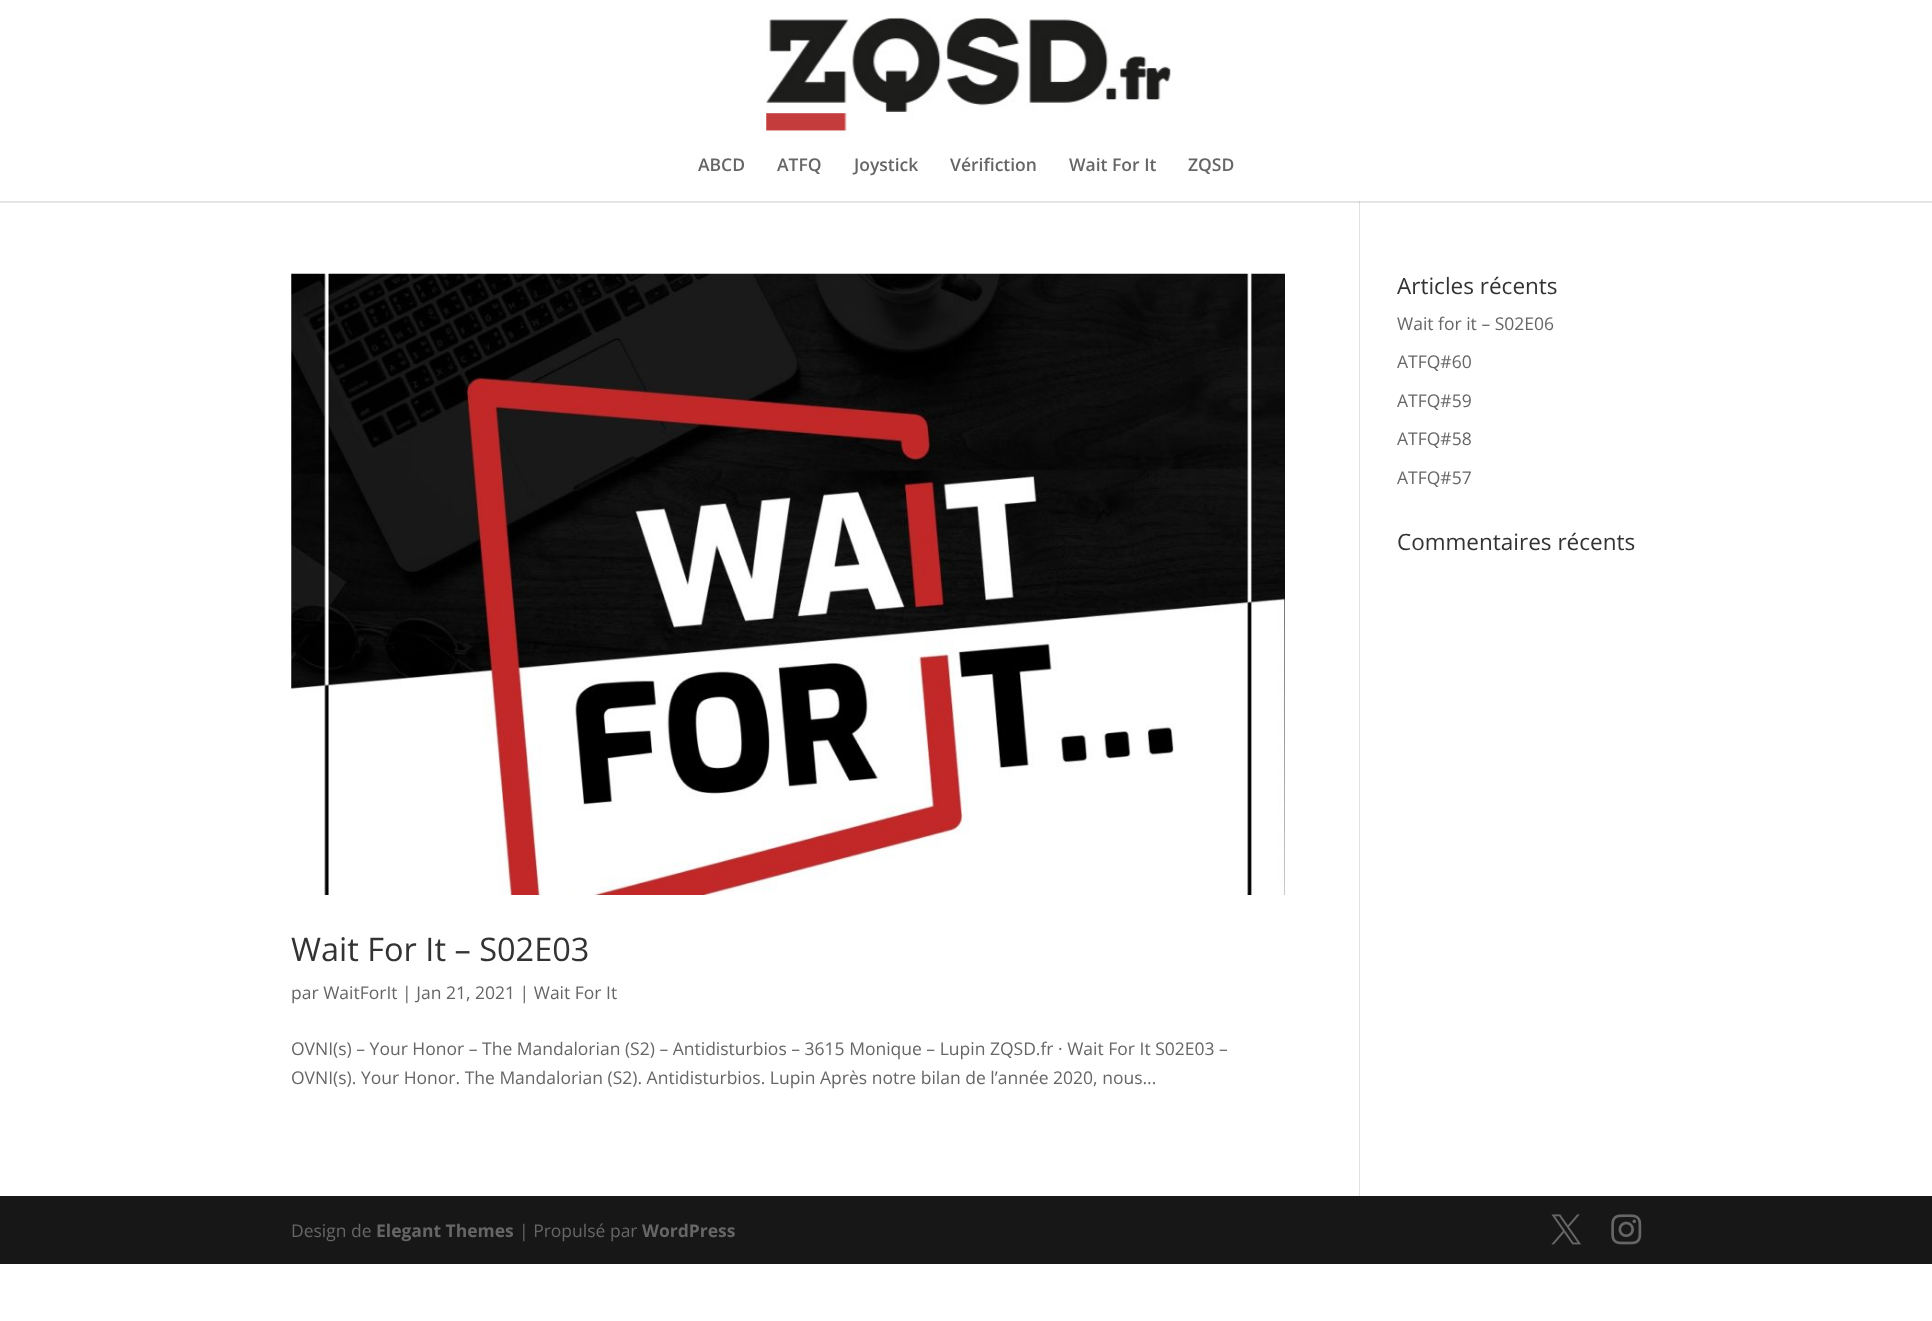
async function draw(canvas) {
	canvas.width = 1932;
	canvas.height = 1321;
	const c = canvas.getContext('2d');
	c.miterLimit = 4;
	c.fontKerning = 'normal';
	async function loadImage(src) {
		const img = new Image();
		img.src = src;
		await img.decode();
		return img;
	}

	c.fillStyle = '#fff';
	c.fillRect(0, 0, 1932, 1321);
	c.fillStyle = '#e2e2e2';
	c.fillRect(1359, 201, 1, 995);
	c.fillStyle = '#0000001a';
	c.beginPath();
	c.moveTo(0, 201);
	c.lineTo(0, 203);
	c.lineTo(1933, 203);
	c.lineTo(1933, 1);
	c.lineTo(1932, 1);
	c.lineTo(1932, 201);
	c.closePath();
	c.fill();
	c.drawImage(await loadImage('img1.png'), 766, 17, 405, 121);
	c.font = '600 17.5px Open Sans';
	c.fillStyle = '#666';
	for (const [text, x, y] of [
		['ABCD', 698, 171],
		['ATFQ', 777, 171],
		['Joystick', 854, 171],
		['Vérifiction', 950, 171],
		['Wait For It', 1069, 171],
		['ZQSD', 1188, 171],
	]) {
		c.fillText(text, x, y);
	}
	c.font = '22.5px Open Sans';
	c.fillStyle = '#333';
	c.fillText('Articles récents', 1397, 294);
	c.font = '17.5px Open Sans';
	c.fillStyle = '#666';
	for (const [text, x, y] of [
		['Wait for it – S02E06', 1397, 330],
		['ATFQ#60', 1397, 368],
		['ATFQ#59', 1397, 407],
		['ATFQ#58', 1397, 445],
		['ATFQ#57', 1397, 484],
	]) {
		c.fillText(text, x, y);
	}
	c.font = '22.5px Open Sans';
	c.fillStyle = '#333';
	c.fillText('Commentaires récents', 1397, 550);
	c.drawImage(await loadImage('img2.png'), 291, 273, 994, 622);
	c.font = '32.5px Open Sans';
	c.fillText('Wait For It – S02E03', 291, 961);
	c.font = '17.5px Open Sans';
	c.fillStyle = '#666';
	for (const [text, x, y] of [
		['par WaitForIt | Jan 21, 2021 | Wait For It', 291, 999],
		['OVNI(s) – Your Honor – The Mandalorian (S2) – Antidisturbios – 3615 Monique – Lupin ZQSD.fr · Wait For It S02E03 –', 291, 1055],
		['OVNI(s). Your Honor. The Mandalorian (S2). Antidisturbios. Lupin Après notre bilan de l’année 2020, nous...', 291, 1084],
	]) {
		c.fillText(text, x, y);
	}
	c.fillStyle = '#171717';
	c.fillRect(0, 1196, 1932, 68);
	c.fillStyle = '#666';
	c.fillText('Design de', 291, 1237);
	c.font = 'bold 17.5px Open Sans';
	c.fillText('Elegant Themes', 376, 1237);
	c.font = '17.5px Open Sans';
	c.fillText('| Propulsé par', 519, 1237);
	c.font = 'bold 17.5px Open Sans';
	c.fillText('WordPress', 642, 1237);
	c.drawImage(await loadImage('img3.png'), 1551, 1214, 30, 31);
	c.drawImage(await loadImage('img4.png'), 1611, 1214, 31, 31);
}

draw(document.querySelector('canvas'));
